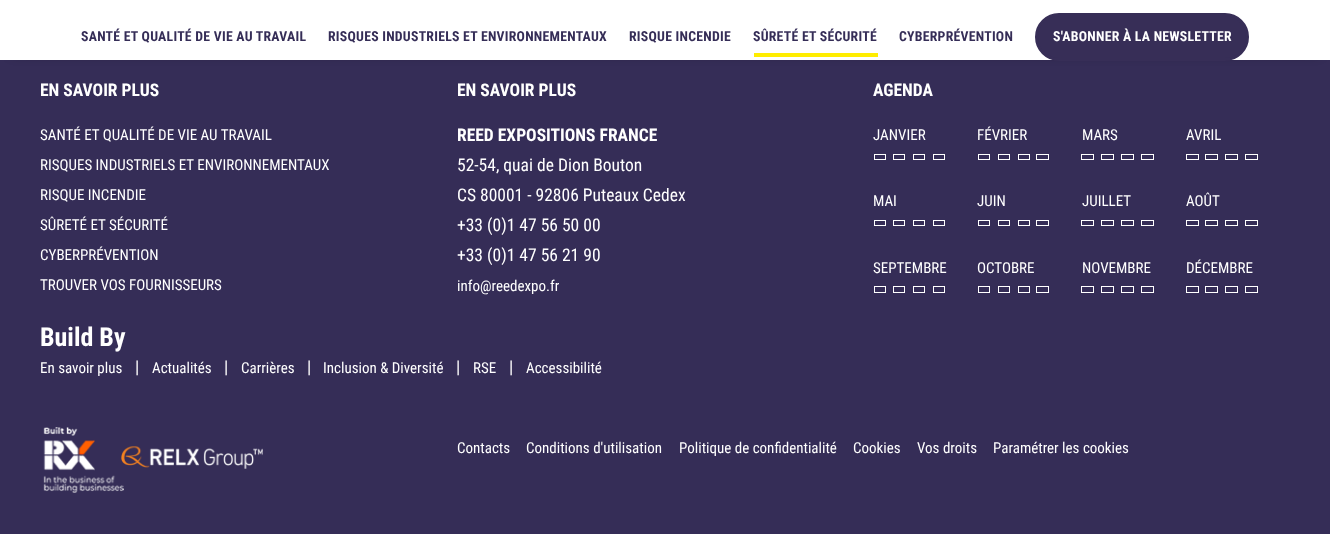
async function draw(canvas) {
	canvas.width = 1330;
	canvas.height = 534;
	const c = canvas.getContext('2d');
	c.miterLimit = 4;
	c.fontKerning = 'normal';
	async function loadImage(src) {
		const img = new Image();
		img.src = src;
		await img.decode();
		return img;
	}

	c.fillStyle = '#352d57';
	c.fillRect(0, 0, 1330, 534);
	c.fillStyle = '#00000080';
	c.filter = 'blur(6px)';
	c.beginPath();
	c.rect(13, 18, 1305, 35);
	c.fill();
	c.filter = 'none';
	c.fillStyle = '#fff';
	c.fillRect(0, 0, 1330, 60);
	c.letterSpacing = '0.25px';
	c.font = 'bold 13.75px Roboto Condensed';
	c.fillStyle = '#352d57';
	for (const [text, x, y] of [
		['SANTÉ ET QUALITÉ DE VIE AU TRAVAIL', 81, 41],
		['RISQUES INDUSTRIELS ET ENVIRONNEMENTAUX', 328, 41],
		['RISQUE INCENDIE', 629, 41],
		['SÛRETÉ ET SÉCURITÉ', 753, 41],
	]) {
		c.fillText(text, x, y);
	}
	c.fillStyle = '#ffed00';
	c.fillRect(754, 53, 124, 4);
	c.fillStyle = '#352d57';
	c.fillText('CYBERPRÉVENTION', 899, 41);
	c.fillStyle = '#372e57';
	c.beginPath();
	c.roundRect(1036.5, 14.5, 211, 45, 22.5);
	c.fill();
	c.strokeStyle = '#372e57';
	c.lineWidth = 3;
	c.stroke();
	c.fillStyle = '#fff';
	c.fillText('S\'ABONNER À LA NEWSLETTER', 1053, 41);
	c.letterSpacing = '0px';
	c.font = 'bold 17.5px Roboto Condensed';
	c.fillText('EN SAVOIR PLUS', 40, 96);
	c.font = '15px Roboto Condensed';
	for (const [text, x, y] of [
		['SANTÉ ET QUALITÉ DE VIE AU TRAVAIL', 40, 140],
		['RISQUES INDUSTRIELS ET ENVIRONNEMENTAUX', 40, 170],
		['RISQUE INCENDIE', 40, 200],
		['SÛRETÉ ET SÉCURITÉ', 40, 230],
		['CYBERPRÉVENTION', 40, 260],
		['TROUVER VOS FOURNISSEURS', 40, 290],
	]) {
		c.fillText(text, x, y);
	}
	c.font = 'bold 17.5px Roboto Condensed';
	c.fillText('EN SAVOIR PLUS', 457, 96);
	c.fillText('REED EXPOSITIONS FRANCE', 457, 141);
	c.font = '17.5px Roboto Condensed';
	for (const [text, x, y] of [
		['52-54, quai de Dion Bouton', 457, 171],
		['CS 80001 - 92806 Puteaux Cedex', 457, 201],
		['+33 (0)1 47 56 50 00', 457, 231],
		['+33 (0)1 47 56 21 90', 457, 261],
	]) {
		c.fillText(text, x, y);
	}
	c.font = '15px Roboto Condensed';
	c.fillText('info@reedexpo.fr', 457, 291);
	c.font = 'bold 17.5px Roboto Condensed';
	c.fillText('AGENDA', 873, 96);
	c.font = '15px Roboto Condensed';
	c.fillText('JANVIER', 873, 140);
	c.strokeStyle = '#fff';
	c.lineWidth = 1;
	c.strokeRect(874.5, 154.5, 11, 5);
	c.strokeRect(893.5, 154.5, 11, 5);
	c.strokeRect(913.5, 154.5, 11, 5);
	c.strokeRect(933.5, 154.5, 11, 5);
	c.fillText('FÉVRIER', 977, 140);
	c.strokeRect(978.5, 154.5, 11, 5);
	c.strokeRect(998.5, 154.5, 11, 5);
	c.strokeRect(1018.5, 154.5, 11, 5);
	c.strokeRect(1036.5, 154.5, 12, 5);
	c.fillText('MARS', 1082, 140);
	c.strokeRect(1081.5, 154.5, 12, 5);
	c.strokeRect(1101.5, 154.5, 12, 5);
	c.strokeRect(1121.5, 154.5, 12, 5);
	c.strokeRect(1141.5, 154.5, 12, 5);
	c.fillText('AVRIL', 1186, 140);
	c.strokeRect(1186.5, 154.5, 12, 5);
	c.strokeRect(1205.5, 154.5, 12, 5);
	c.strokeRect(1225.5, 154.5, 12, 5);
	c.strokeRect(1245.5, 154.5, 12, 5);
	c.fillText('MAI', 873, 206);
	c.strokeRect(874.5, 220.5, 11, 5);
	c.strokeRect(893.5, 220.5, 11, 5);
	c.strokeRect(913.5, 220.5, 11, 5);
	c.strokeRect(933.5, 220.5, 11, 5);
	c.fillText('JUIN', 977, 206);
	c.strokeRect(978.5, 220.5, 11, 5);
	c.strokeRect(998.5, 220.5, 11, 5);
	c.strokeRect(1018.5, 220.5, 11, 5);
	c.strokeRect(1036.5, 220.5, 12, 5);
	c.fillText('JUILLET', 1082, 206);
	c.strokeRect(1081.5, 220.5, 12, 5);
	c.strokeRect(1101.5, 220.5, 12, 5);
	c.strokeRect(1121.5, 220.5, 12, 5);
	c.strokeRect(1141.5, 220.5, 12, 5);
	c.fillText('AOÛT', 1186, 206);
	c.strokeRect(1186.5, 220.5, 12, 5);
	c.strokeRect(1205.5, 220.5, 12, 5);
	c.strokeRect(1225.5, 220.5, 12, 5);
	c.strokeRect(1245.5, 220.5, 12, 5);
	c.fillText('SEPTEMBRE', 873, 273);
	c.strokeRect(874.5, 286.5, 11, 6);
	c.strokeRect(893.5, 286.5, 11, 6);
	c.strokeRect(913.5, 286.5, 11, 6);
	c.strokeRect(933.5, 286.5, 11, 6);
	c.fillText('OCTOBRE', 977, 273);
	c.strokeRect(978.5, 286.5, 11, 6);
	c.strokeRect(998.5, 286.5, 11, 6);
	c.strokeRect(1018.5, 286.5, 11, 6);
	c.strokeRect(1036.5, 286.5, 12, 6);
	c.fillText('NOVEMBRE', 1082, 273);
	c.strokeRect(1081.5, 286.5, 12, 6);
	c.strokeRect(1101.5, 286.5, 12, 6);
	c.strokeRect(1121.5, 286.5, 12, 6);
	c.strokeRect(1141.5, 286.5, 12, 6);
	c.fillText('DÉCEMBRE', 1186, 273);
	c.strokeRect(1186.5, 286.5, 12, 6);
	c.strokeRect(1205.5, 286.5, 12, 6);
	c.strokeRect(1225.5, 286.5, 12, 6);
	c.strokeRect(1245.5, 286.5, 12, 6);
	c.font = 'bold 26px Roboto Condensed';
	c.fillText('Build By', 40, 346);
	c.font = '15px Roboto Condensed';
	c.fillText('En savoir plus', 40, 373);
	c.font = '17.5px Roboto Condensed';
	c.fillText('|', 135, 373);
	c.font = '15px Roboto Condensed';
	c.fillText('Actualités', 152, 373);
	c.font = '17.5px Roboto Condensed';
	c.fillText('|', 224, 373);
	c.font = '15px Roboto Condensed';
	c.fillText('Carrières', 241, 373);
	c.font = '17.5px Roboto Condensed';
	c.fillText('|', 307, 373);
	c.font = '15px Roboto Condensed';
	c.fillText('Inclusion & Diversité', 323, 373);
	c.font = '17.5px Roboto Condensed';
	c.fillText('|', 456, 373);
	c.font = '15px Roboto Condensed';
	c.fillText('RSE', 473, 373);
	c.font = '17.5px Roboto Condensed';
	c.fillText('|', 509, 373);
	c.font = '15px Roboto Condensed';
	c.fillText('Accessibilité', 526, 373);
	c.drawImage(await loadImage('img1.png'), 43, 427, 220, 66);
	for (const [text, x, y] of [
		['Contacts', 457, 453],
		['Conditions d\'utilisation', 526, 453],
		['Politique de confidentialité', 679, 453],
		['Cookies', 853, 453],
		['Vos droits', 917, 453],
		['Paramétrer les cookies', 993, 453],
	]) {
		c.fillText(text, x, y);
	}
}

draw(document.querySelector('canvas'));
